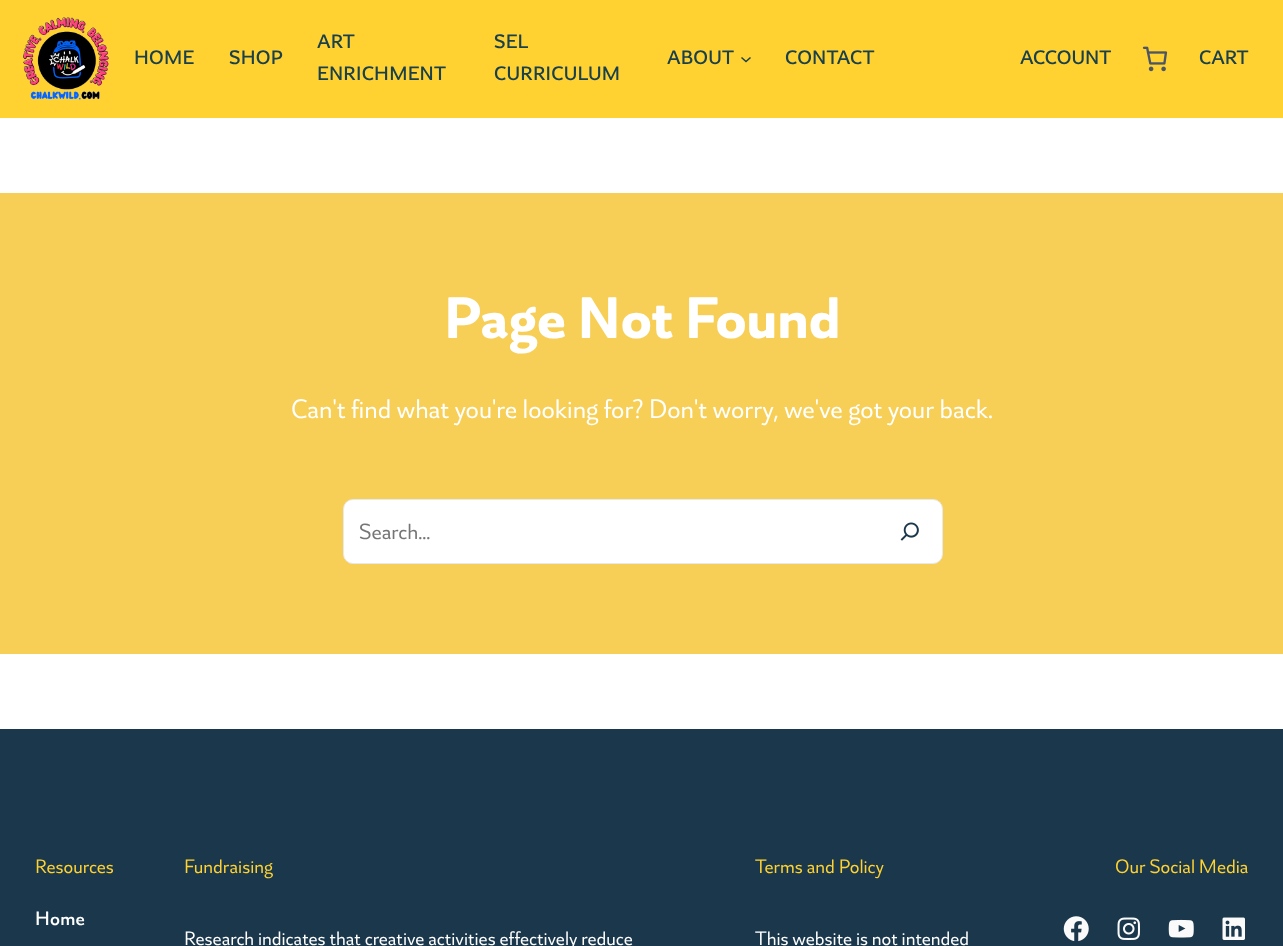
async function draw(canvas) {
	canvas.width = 1283;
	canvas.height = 946;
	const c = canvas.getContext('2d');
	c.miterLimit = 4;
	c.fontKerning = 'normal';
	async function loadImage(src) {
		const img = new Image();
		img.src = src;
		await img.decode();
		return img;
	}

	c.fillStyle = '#fff';
	c.fillRect(0, 0, 1283, 946);
	c.fillStyle = '#ffd231';
	c.fillRect(0, 0, 1283, 118);
	c.drawImage(await loadImage('img1.png'), 23, 17, 86, 83);
	c.letterSpacing = '0.25px';
	c.font = '500 20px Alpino';
	c.fillStyle = '#1a404c';
	for (const [text, x, y] of [
		['HOME', 134, 64],
		['SHOP', 229, 64],
		['ART', 317, 48],
		['ENRICHMENT', 317, 80],
		['SEL', 494, 48],
		['CURRICULUM', 494, 80],
		['ABOUT', 667, 64],
	]) {
		c.fillText(text, x, y);
	}
	c.beginPath();
	c.moveTo(741.5, 57.5);
	c.lineTo(746, 61.5);
	c.lineTo(750.5, 57.5);
	c.strokeStyle = '#1a404c';
	c.lineWidth = 1.5;
	c.stroke();
	c.fillText('CONTACT', 785, 64);
	c.letterSpacing = '0px';
	c.fillText('ACCOUNT', 1020, 64);
	c.drawImage(await loadImage('img2.png'), 1142, 46, 26, 26);
	c.fillText('CART', 1199, 64);
	c.fillStyle = '#f8cf56';
	c.fillRect(0, 193, 1283, 461);
	c.font = 'bold 60px Alpino';
	c.fillStyle = '#fff';
	c.fillText('Page Not Found', 444, 338);
	c.font = '27.5px Alpino';
	c.fillText('Can\'t find what you\'re looking for? Don\'t worry, we\'ve got your back.', 291, 418);
	c.beginPath();
	c.roundRect(343.5, 499.5, 599, 64, 9.5);
	c.fill();
	c.strokeStyle = '#e6e9ef';
	c.lineWidth = 1;
	c.stroke();
	c.font = '22.5px Alpino';
	c.fillStyle = '#757575';
	c.fillText('Search...', 359, 539);
	c.drawImage(await loadImage('img3.png'), 900, 522, 19, 19);
	c.fillStyle = '#1a374c';
	c.fillRect(0, 729, 1283, 217);
	c.font = '20px Alpino';
	c.fillStyle = '#ffd231';
	c.fillText('Resources', 35, 873);
	c.letterSpacing = '0.25px';
	c.font = '500 20px Alpino';
	c.fillStyle = '#fff';
	c.fillText('Home', 35, 925);
	c.letterSpacing = '0px';
	c.font = '20px Alpino';
	c.fillStyle = '#ffd231';
	c.fillText('Fundraising', 184, 873);
	c.fillStyle = '#fff';
	c.fillText('Research indicates that creative activities effectively reduce', 184, 945);
	c.fillStyle = '#ffd231';
	c.fillText('Terms and Policy', 755, 873);
	c.fillStyle = '#fff';
	c.fillText('This website is not intended', 755, 945);
	c.fillStyle = '#ffd231';
	c.fillText('Our Social Media', 1115, 873);
	c.drawImage(await loadImage('img4.png'), 1063, 916, 26, 26);
	c.drawImage(await loadImage('img5.png'), 1117, 917, 23, 23);
	c.drawImage(await loadImage('img6.png'), 1168, 919, 26, 19);
	c.drawImage(await loadImage('img7.png'), 1222, 917, 23, 23);
}

draw(document.querySelector('canvas'));
